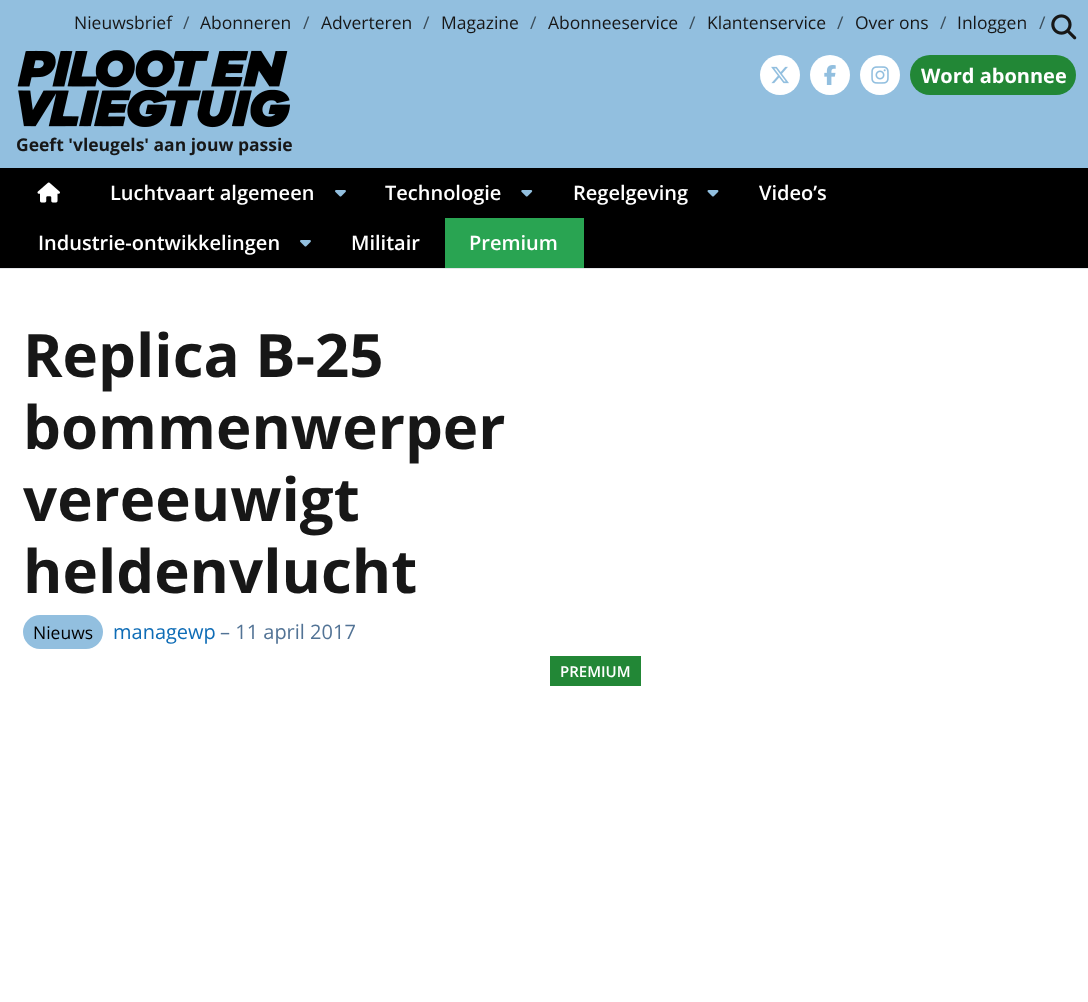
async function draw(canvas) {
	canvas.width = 1088;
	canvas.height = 1002;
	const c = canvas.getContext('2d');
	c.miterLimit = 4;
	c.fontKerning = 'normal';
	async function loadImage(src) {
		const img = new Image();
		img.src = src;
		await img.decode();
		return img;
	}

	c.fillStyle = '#fff';
	c.fillRect(0, 0, 1088, 1002);
	c.fillStyle = '#92bfdf';
	c.fillRect(0, 0, 1088, 168);
	c.font = '17.5px Open Sans';
	c.fillStyle = '#171717';
	c.fillText('Nieuwsbrief', 74, 29);
	c.fillStyle = '#3a4c59';
	c.fillText('/', 183, 29);
	c.fillStyle = '#171717';
	c.fillText('Abonneren', 200, 29);
	c.fillStyle = '#3a4c59';
	c.fillText('/', 303, 29);
	c.fillStyle = '#171717';
	c.fillText('Adverteren', 321, 29);
	c.fillStyle = '#3a4c59';
	c.fillText('/', 423, 29);
	c.fillStyle = '#171717';
	c.fillText('Magazine', 441, 29);
	c.fillStyle = '#3a4c59';
	c.fillText('/', 530, 29);
	c.fillStyle = '#171717';
	c.fillText('Abonneeservice', 548, 29);
	c.fillStyle = '#3a4c59';
	c.fillText('/', 689, 29);
	c.fillStyle = '#171717';
	c.fillText('Klantenservice', 707, 29);
	c.fillStyle = '#3a4c59';
	c.fillText('/', 837, 29);
	c.fillStyle = '#171717';
	c.fillText('Over ons', 855, 29);
	c.fillStyle = '#3a4c59';
	c.fillText('/', 940, 29);
	c.fillStyle = '#171717';
	c.fillText('Inloggen', 957, 29);
	c.fillStyle = '#3a4c59';
	c.fillText('/', 1039, 29);
	c.drawImage(await loadImage('img1.png'), 1051, 14, 26, 26);
	c.fillStyle = '#fff';
	c.beginPath();
	c.arc(780, 75, 20, 0, 2 * Math.PI);
	c.fill();
	c.drawImage(await loadImage('img2.png'), 771, 66, 18, 18);
	c.beginPath();
	c.arc(830, 75, 20, 0, 2 * Math.PI);
	c.fill();
	c.drawImage(await loadImage('img3.png'), 824, 65, 12, 20);
	c.beginPath();
	c.arc(880, 75, 20, 0, 2 * Math.PI);
	c.fill();
	c.drawImage(await loadImage('img4.png'), 871, 66, 18, 18);
	c.fillStyle = '#228736';
	c.beginPath();
	c.roundRect(910, 55, 166, 40, 20);
	c.fill();
	c.font = 'bold 20px Open Sans';
	c.fillStyle = '#fff';
	c.fillText('Word abonnee', 921, 83);
	c.drawImage(await loadImage('img5.png'), 17, 50, 273, 78);
	c.font = 'bold 17.5px Open Sans';
	c.fillStyle = '#171717';
	c.fillText('Geeft \'vleugels\' aan jouw passie', 16, 151);
	c.fillStyle = '#000';
	c.fillRect(0, 168, 1088, 100);
	c.fillStyle = '#e5e7eb';
	c.fillRect(0, 268, 1088, 1);
	c.drawImage(await loadImage('img6.png'), 37, 182, 23, 21);
	c.font = '600 20px Open Sans';
	c.fillStyle = '#fff';
	c.fillText('Luchtvaart algemeen', 110, 200);
	c.drawImage(await loadImage('img7.png'), 335, 190, 11, 7);
	c.fillText('Technologie', 385, 200);
	c.drawImage(await loadImage('img8.png'), 521, 190, 12, 7);
	c.fillText('Regelgeving', 573, 200);
	c.drawImage(await loadImage('img9.png'), 707, 190, 12, 7);
	c.fillText('Video’s', 759, 200);
	c.fillText('Industrie-ontwikkelingen', 38, 250);
	c.drawImage(await loadImage('img7.png'), 300, 240, 11, 7);
	c.fillText('Militair', 351, 250);
	c.fillStyle = '#29a452';
	c.fillRect(445, 218, 139, 50);
	c.fillStyle = '#fff';
	c.fillText('Premium', 469, 250);
	c.font = 'bold 60px Open Sans';
	c.fillStyle = '#171717';
	for (const [text, x, y] of [
		['Replica B-25', 23, 377],
		['bommenwerper', 23, 449],
		['vereeuwigt', 23, 521],
		['heldenvlucht', 23, 593],
	]) {
		c.fillText(text, x, y);
	}
	c.fillStyle = '#92bfdf';
	c.beginPath();
	c.roundRect(23, 615, 80, 34, 17);
	c.fill();
	c.font = '17.5px Open Sans';
	c.fillStyle = '#000';
	c.fillText('Nieuws', 33, 639);
	c.font = '20px Open Sans';
	c.fillStyle = '#0e6cb6';
	c.fillText('managewp', 113, 639);
	c.fillStyle = '#527395';
	c.fillText('– 11 april 2017', 220, 639);
	c.fillStyle = '#228736';
	c.fillRect(550, 656, 91, 30);
	c.font = '600 15px Open Sans';
	c.fillStyle = '#fff';
	c.fillText('PREMIUM', 560, 677);
}

draw(document.querySelector('canvas'));
